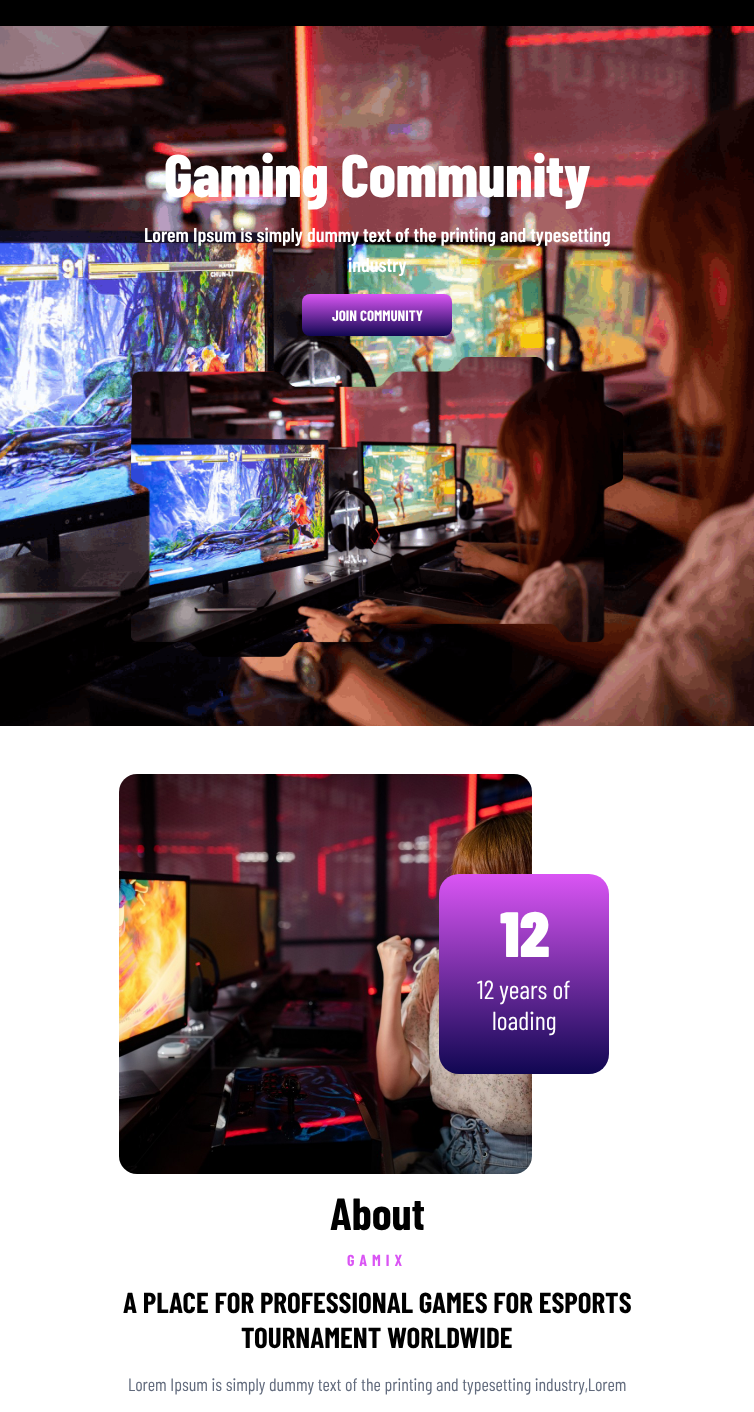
async function draw(canvas) {
	canvas.width = 754;
	canvas.height = 1412;
	const c = canvas.getContext('2d');
	c.miterLimit = 4;
	c.fontKerning = 'normal';
	async function loadImage(src) {
		const img = new Image();
		img.src = src;
		await img.decode();
		return img;
	}
	let gradient;

	c.fillStyle = '#fff';
	c.fillRect(0, 0, 754, 1412);
	c.fillStyle = '#000';
	c.fillRect(0, 0, 754, 26);
	c.drawImage(await loadImage('img1.png'), 0, 26, 754, 700);
	c.font = '800 60px Barlow Condensed';
	c.fillStyle = '#fff';
	c.fillText('Gaming Community', 164, 197);
	c.font = '600 20px Barlow Condensed';
	c.fillText('Lorem Ipsum is simply dummy text of the printing and typesetting', 144, 242);
	c.fillText('industry', 348, 272);
	gradient = c.createLinearGradient(377, 294, 377, 336);
	gradient.addColorStop(0, '#da55f4');
	gradient.addColorStop(1, '#100752');
	c.fillStyle = gradient;
	c.beginPath();
	c.roundRect(302, 294, 150, 42, 8);
	c.fill();
	c.font = 'bold 15px Barlow Condensed';
	c.fillStyle = '#fff';
	c.fillText('JOIN COMMUNITY', 332, 321);
	c.drawImage(await loadImage('img2.png'), 131, 357, 492, 300);
	c.drawImage(await loadImage('img3.png'), 131, 357, 492, 300);
	c.drawImage(await loadImage('img4.png'), 119, 774, 413, 400);
	gradient = c.createLinearGradient(524, 874, 524, 1074);
	gradient.addColorStop(0, '#da55f4');
	gradient.addColorStop(1, '#100752');
	c.fillStyle = gradient;
	c.beginPath();
	c.roundRect(439, 874, 170, 200, 20);
	c.fill();
	c.font = '900 64px Barlow Condensed';
	c.fillStyle = '#fff';
	c.fillText('12', 500, 957);
	c.font = '26px Barlow Condensed';
	c.fillText('12 years of', 477, 999);
	c.fillText('loading', 492, 1030);
	c.font = 'bold 45px Barlow Condensed';
	c.fillStyle = '#000';
	c.fillText('About', 330, 1230);
	c.letterSpacing = '5px';
	c.font = 'bold 16px Barlow Condensed';
	c.fillStyle = '#da55f4';
	c.fillText('GAMIX', 347, 1266);
	c.letterSpacing = '0px';
	c.font = 'bold 29px Barlow Condensed';
	c.fillStyle = '#000';
	c.fillText('A PLACE FOR PROFESSIONAL GAMES FOR ESPORTS', 123, 1313);
	c.fillText('TOURNAMENT WORLDWIDE', 241, 1348);
	c.font = '18px Barlow Condensed';
	c.fillStyle = '#626b7d';
	c.fillText('Lorem Ipsum is simply dummy text of the printing and typesetting industry,Lorem', 128, 1391);
}

draw(document.querySelector('canvas'));
